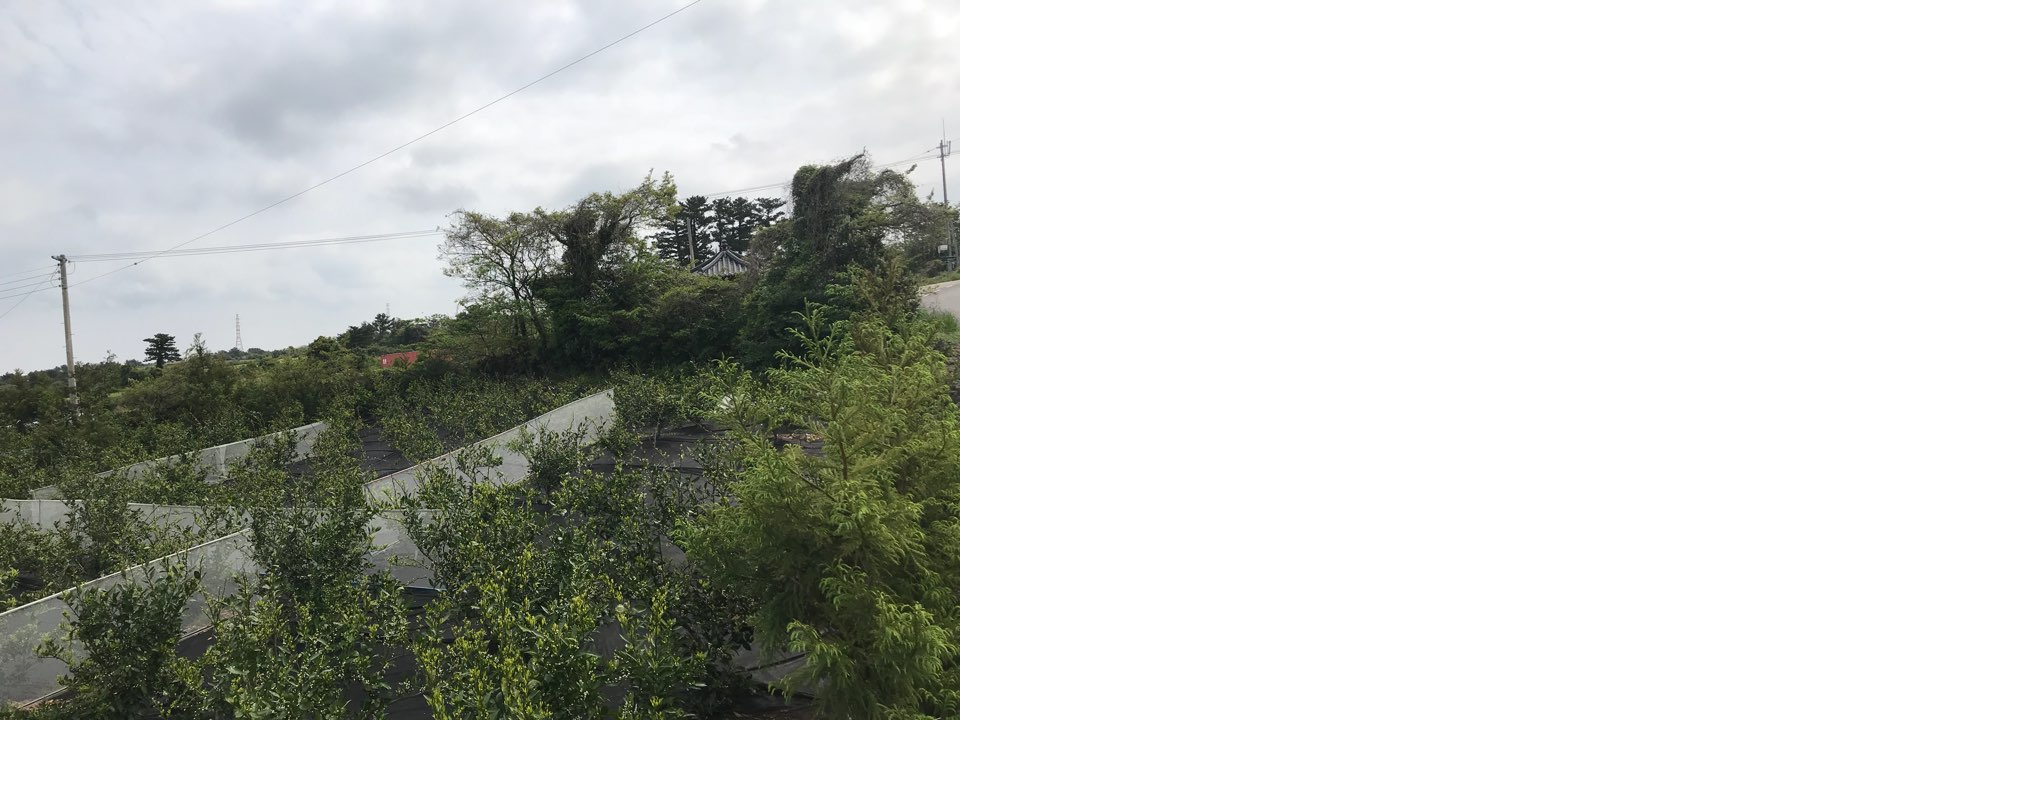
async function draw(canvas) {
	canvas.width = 2037;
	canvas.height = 796;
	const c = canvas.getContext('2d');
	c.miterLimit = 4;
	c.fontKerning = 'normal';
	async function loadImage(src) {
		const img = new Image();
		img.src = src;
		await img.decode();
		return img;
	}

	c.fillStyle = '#fff';
	c.fillRect(0, 0, 2037, 796);
	c.drawImage(await loadImage('img1.png'), 0, 0, 960, 720);
}

draw(document.querySelector('canvas'));
